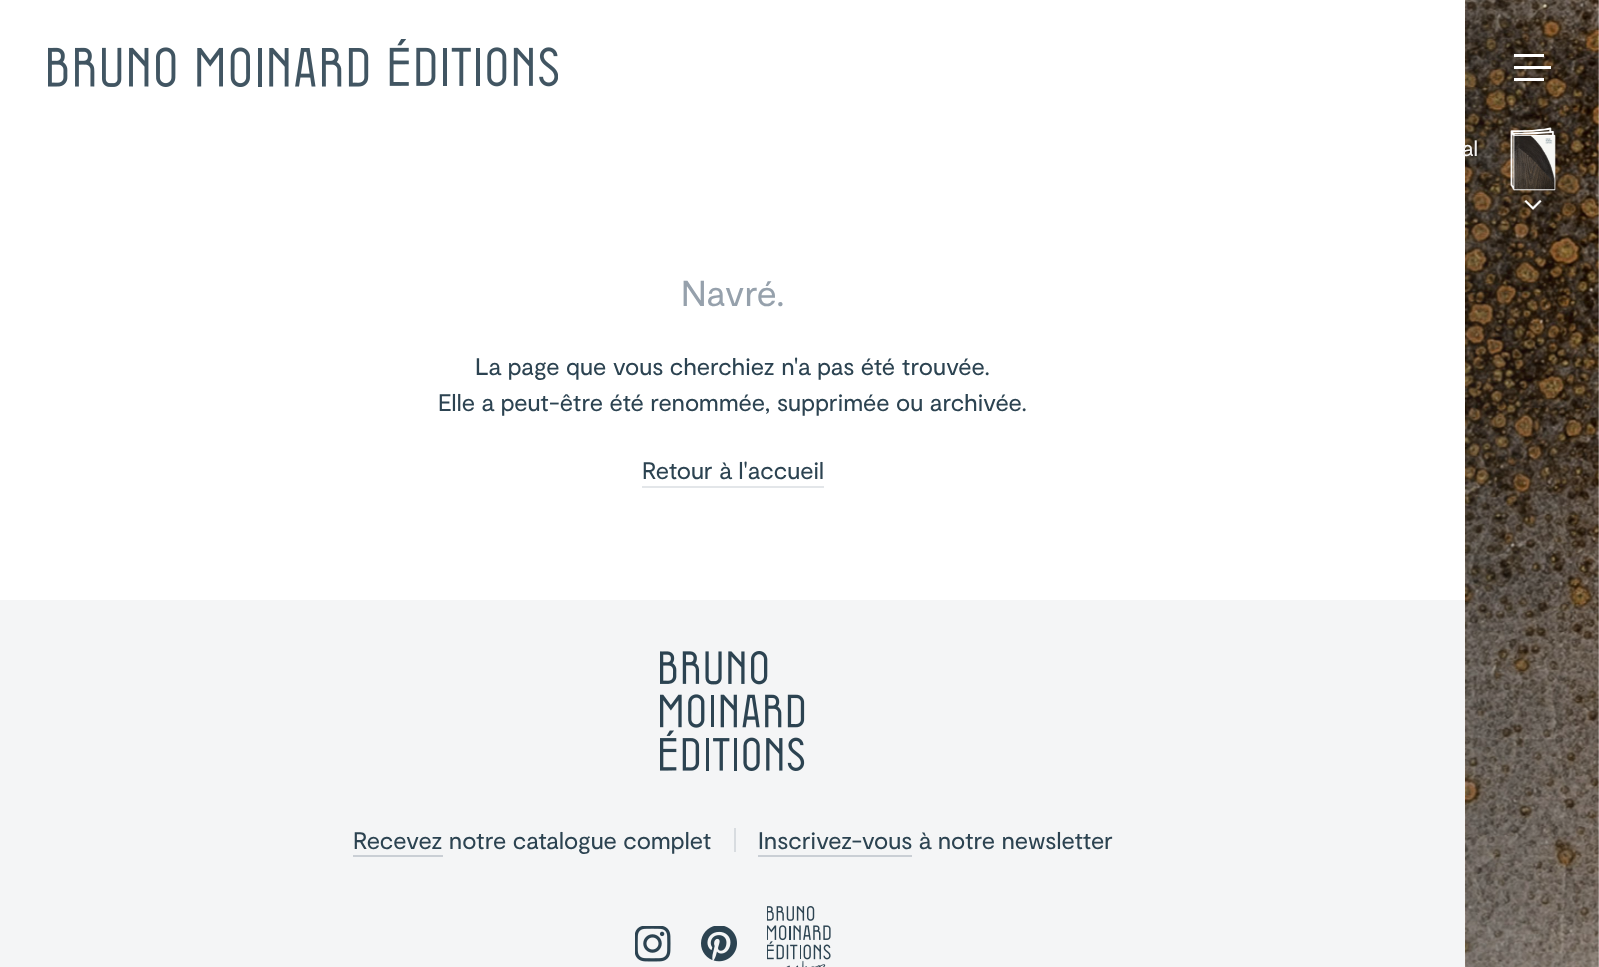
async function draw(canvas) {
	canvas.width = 1599;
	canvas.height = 967;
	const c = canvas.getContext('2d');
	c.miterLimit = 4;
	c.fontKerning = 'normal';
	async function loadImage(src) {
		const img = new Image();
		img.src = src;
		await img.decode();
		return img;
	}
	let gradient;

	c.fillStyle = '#fff';
	c.fillRect(0, 0, 1599, 967);
	c.drawImage(await loadImage('img1.png'), 48, 39, 510, 48);
	c.drawImage(await loadImage('img2.png'), 1465, 0, 134, 967);
	gradient = c.createLinearGradient(1014, 484, 1599, 484);
	gradient.addColorStop(0, '#2c435199');
	gradient.addColorStop(1, '#2c435100');
	c.fillStyle = gradient;
	c.fillRect(1466, 0, 109, 967);
	for (const [x, y, w, h, color] of [
		[1514, 66, 37, 3, '#fff'],
		[1514, 54, 30, 3, '#fff'],
		[1514, 78, 30, 3, '#fff'],
	]) {
		c.fillStyle = color;
		c.fillRect(x, y, w, h);
	}
	c.font = '22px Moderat';
	c.fillStyle = '#f5f4f4';
	c.fillText('al', 1462, 156);
	c.drawImage(await loadImage('img3.png'), 1510, 127, 46, 83);
	c.font = '36px Moderat';
	c.fillStyle = '#96a1ac';
	c.fillText('Navré.', 681, 306);
	c.font = '24px Moderat';
	c.fillStyle = '#2c4351';
	c.fillText('La page que vous cherchiez n\'a pas été trouvée.', 475, 375);
	c.fillText('Elle a peut-être été renommée, supprimée ou archivée.', 438, 411);
	c.fillStyle = '#e3e6e9';
	c.fillRect(642, 486, 182, 2);
	c.fillStyle = '#2c4351';
	c.fillText('Retour à l\'accueil', 642, 479);
	c.fillStyle = '#f4f5f6';
	c.fillRect(0, 600, 1465, 367);
	c.drawImage(await loadImage('img4.png'), 660, 651, 145, 120);
	c.fillStyle = '#d8dce0';
	c.fillRect(734, 828, 2, 24);
	c.fillStyle = '#2c4351';
	c.fillText('Recevez notre catalogue complet', 353, 849);
	c.fillStyle = '#cacfd5';
	c.fillRect(353, 855, 90, 2);
	c.fillStyle = '#2c4351';
	c.fillText('Inscrivez-vous à notre newsletter', 758, 849);
	c.fillStyle = '#cacfd5';
	c.fillRect(758, 855, 154, 2);
	c.drawImage(await loadImage('img5.png'), 635, 926, 36, 36);
	c.drawImage(await loadImage('img6.png'), 701, 926, 36, 36);
	c.drawImage(await loadImage('img7.png'), 767, 906, 64, 61);
}

draw(document.querySelector('canvas'));
